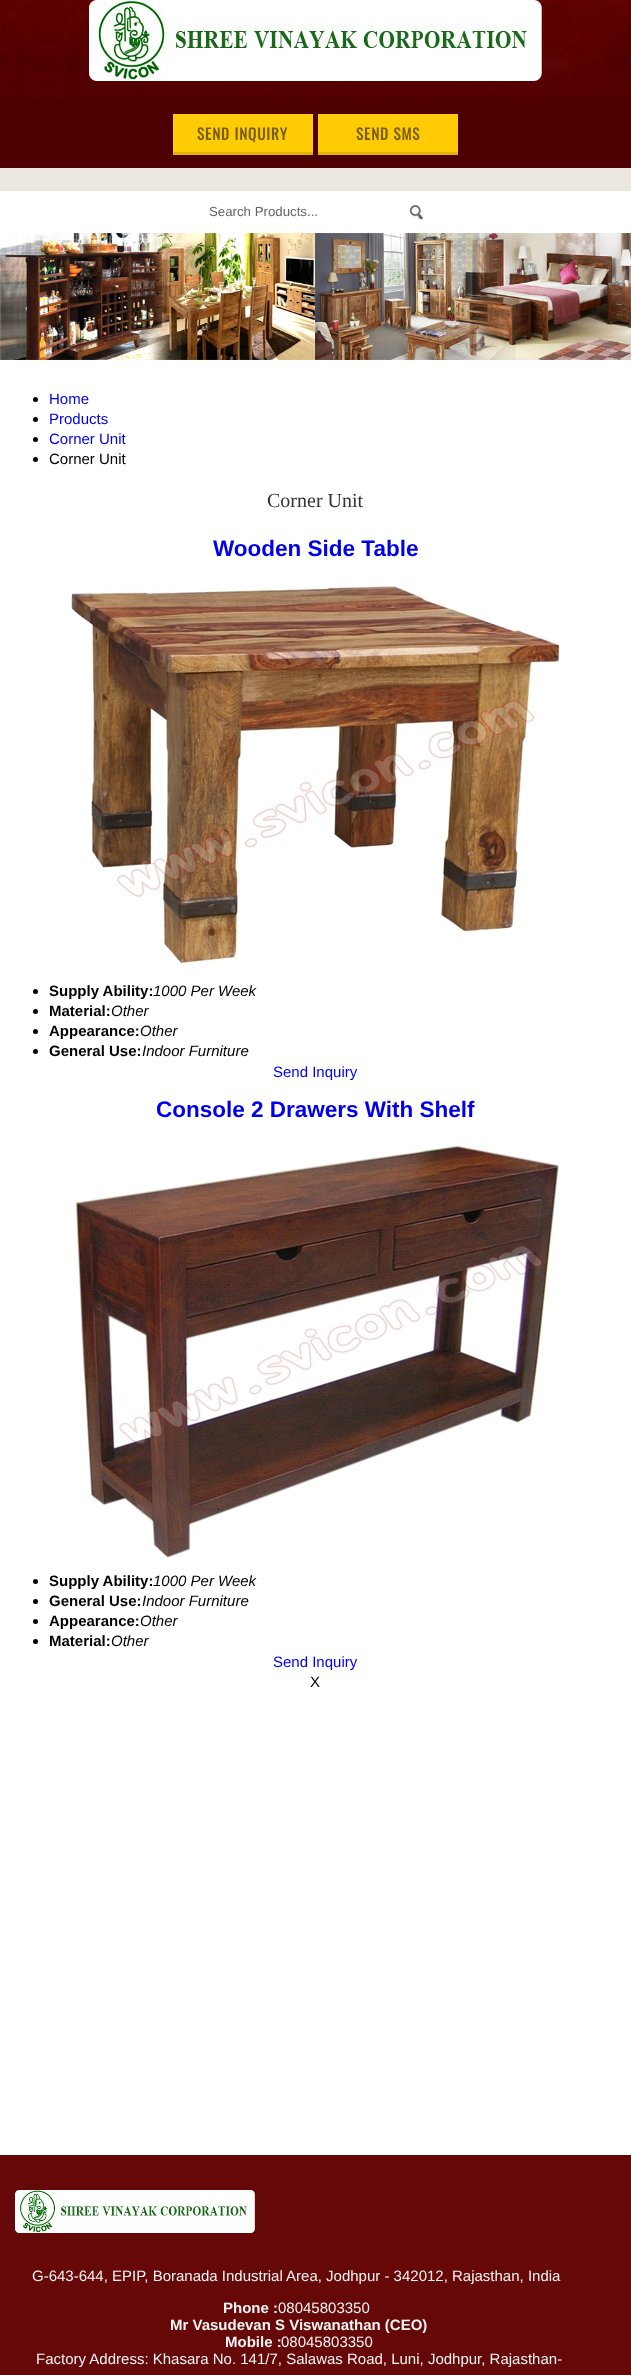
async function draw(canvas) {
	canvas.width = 631;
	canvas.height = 2375;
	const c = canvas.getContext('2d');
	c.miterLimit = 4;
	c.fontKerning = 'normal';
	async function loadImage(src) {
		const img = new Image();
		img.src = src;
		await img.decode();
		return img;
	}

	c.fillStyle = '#4e0000';
	c.fillRect(0, 0, 631, 2375);
	c.drawImage(await loadImage('img1.png'), 0, 0, 631, 98);
	c.drawImage(await loadImage('img2.png'), 89, 0, 453, 81);
	c.fillStyle = '#ffcb04';
	c.fillRect(173, 114, 140, 38);
	c.fillStyle = '#e1b304';
	c.fillRect(173, 152, 140, 3);
	c.letterSpacing = '1px';
	c.font = 'bold 15px Oswald';
	c.fillStyle = '#775f00';
	c.fillText('SEND INQUIRY', 197, 140);
	c.fillStyle = '#ffcb04';
	c.fillRect(318, 114, 140, 38);
	c.fillStyle = '#e1b304';
	c.fillRect(318, 152, 140, 3);
	c.fillStyle = '#775f00';
	c.fillText('SEND SMS', 356, 140);
	c.fillStyle = '#ece8df';
	c.fillRect(0, 168, 631, 23);
	c.fillStyle = '#fff';
	c.fillRect(0, 191, 631, 42);
	c.letterSpacing = '0px';
	c.font = '13.25px Liberation Sans';
	c.fillStyle = '#606469';
	c.fillText('Search Products...', 209, 216);
	c.drawImage(await loadImage('img3.png'), 409, 204, 16, 16);
	c.fillStyle = '#fff';
	c.fillRect(0, 360, 631, 1795);
	c.drawImage(await loadImage('img4.png'), 0, 233, 631, 127);
	c.fillStyle = '#000';
	c.beginPath();
	c.arc(35.5, 399.5, 2.5, 0, 2 * Math.PI);
	c.fill();
	c.font = '15px Liberation Sans';
	c.fillStyle = '#00e';
	c.fillText('Home', 49, 404);
	c.fillStyle = '#000';
	c.beginPath();
	c.arc(35.5, 419.5, 2.5, 0, 2 * Math.PI);
	c.fill();
	c.fillStyle = '#00e';
	c.fillText('Products', 49, 424);
	c.fillStyle = '#000';
	c.beginPath();
	c.arc(35.5, 439.5, 2.5, 0, 2 * Math.PI);
	c.fill();
	c.fillStyle = '#00e';
	c.fillText('Corner Unit', 49, 444);
	c.fillStyle = '#000';
	c.beginPath();
	c.arc(35.5, 459.5, 2.5, 0, 2 * Math.PI);
	c.fill();
	c.fillText('Corner Unit', 49, 464);
	c.font = '20px Liberation Serif';
	c.fillStyle = '#333';
	c.fillText('Corner Unit', 267, 507);
	c.font = 'bold 22.5px Liberation Sans';
	c.fillStyle = '#00e';
	c.fillText('Wooden Side Table', 213, 556);
	c.drawImage(await loadImage('img5.png'), 71, 586, 489, 379);
	c.fillStyle = '#000';
	c.beginPath();
	c.arc(35.5, 991.5, 2.5, 0, 2 * Math.PI);
	c.fill();
	c.font = 'bold 15px Liberation Sans';
	c.fillText('Supply Ability:', 49, 996);
	c.font = 'italic 15px Liberation Sans';
	c.fillText('1000 Per Week', 153, 996);
	c.beginPath();
	c.arc(35.5, 1011.5, 2.5, 0, 2 * Math.PI);
	c.fill();
	c.font = 'bold 15px Liberation Sans';
	c.fillText('Material:', 49, 1016);
	c.font = 'italic 15px Liberation Sans';
	c.fillText('Other', 111, 1016);
	c.beginPath();
	c.arc(35.5, 1031.5, 2.5, 0, 2 * Math.PI);
	c.fill();
	c.font = 'bold 15px Liberation Sans';
	c.fillText('Appearance:', 49, 1036);
	c.font = 'italic 15px Liberation Sans';
	c.fillText('Other', 140, 1036);
	c.beginPath();
	c.arc(35.5, 1051.5, 2.5, 0, 2 * Math.PI);
	c.fill();
	c.font = 'bold 15px Liberation Sans';
	c.fillText('General Use:', 49, 1056);
	c.font = 'italic 15px Liberation Sans';
	c.fillText('Indoor Furniture', 142, 1056);
	c.font = '15px Liberation Sans';
	c.fillStyle = '#00e';
	c.fillText('Send Inquiry', 273, 1077);
	c.font = 'bold 22.5px Liberation Sans';
	c.fillText('Console 2 Drawers With Shelf', 156, 1117);
	c.drawImage(await loadImage('img6.png'), 75, 1145, 484, 413);
	c.fillStyle = '#000';
	c.beginPath();
	c.arc(35.5, 1581.5, 2.5, 0, 2 * Math.PI);
	c.fill();
	c.font = 'bold 15px Liberation Sans';
	c.fillText('Supply Ability:', 49, 1586);
	c.font = 'italic 15px Liberation Sans';
	c.fillText('1000 Per Week', 153, 1586);
	c.beginPath();
	c.arc(35.5, 1601.5, 2.5, 0, 2 * Math.PI);
	c.fill();
	c.font = 'bold 15px Liberation Sans';
	c.fillText('General Use:', 49, 1606);
	c.font = 'italic 15px Liberation Sans';
	c.fillText('Indoor Furniture', 142, 1606);
	c.beginPath();
	c.arc(35.5, 1621.5, 2.5, 0, 2 * Math.PI);
	c.fill();
	c.font = 'bold 15px Liberation Sans';
	c.fillText('Appearance:', 49, 1626);
	c.font = 'italic 15px Liberation Sans';
	c.fillText('Other', 140, 1626);
	c.beginPath();
	c.arc(35.5, 1641.5, 2.5, 0, 2 * Math.PI);
	c.fill();
	c.font = 'bold 15px Liberation Sans';
	c.fillText('Material:', 49, 1646);
	c.font = 'italic 15px Liberation Sans';
	c.fillText('Other', 111, 1646);
	c.font = '15px Liberation Sans';
	c.fillStyle = '#00e';
	c.fillText('Send Inquiry', 273, 1667);
	c.fillStyle = '#000';
	c.fillText('X', 310, 1687);
	c.fillStyle = '#660807';
	c.fillRect(0, 2155, 631, 220);
	c.drawImage(await loadImage('img7.png'), 15, 2190, 240, 43);
	c.fillStyle = '#f4f4f4';
	c.fillText('G-643-644, EPIP, Boranada Industrial Area, Jodhpur - 342012, Rajasthan, India', 32, 2281);
	c.font = 'bold 15px Liberation Sans';
	c.fillText('Phone :', 223, 2313);
	c.font = '15px Liberation Sans';
	c.fillText('08045803350', 278, 2313);
	c.font = 'bold 15px Liberation Sans';
	c.fillText('Mr Vasudevan S Viswanathan (CEO)', 170, 2330);
	c.fillText('Mobile :', 225, 2347);
	c.font = '15px Liberation Sans';
	c.fillText('08045803350', 281, 2347);
	c.fillText('Factory Address: Khasara No. 141/7, Salawas Road, Luni, Jodhpur, Rajasthan-', 36, 2364);
}

draw(document.querySelector('canvas'));
